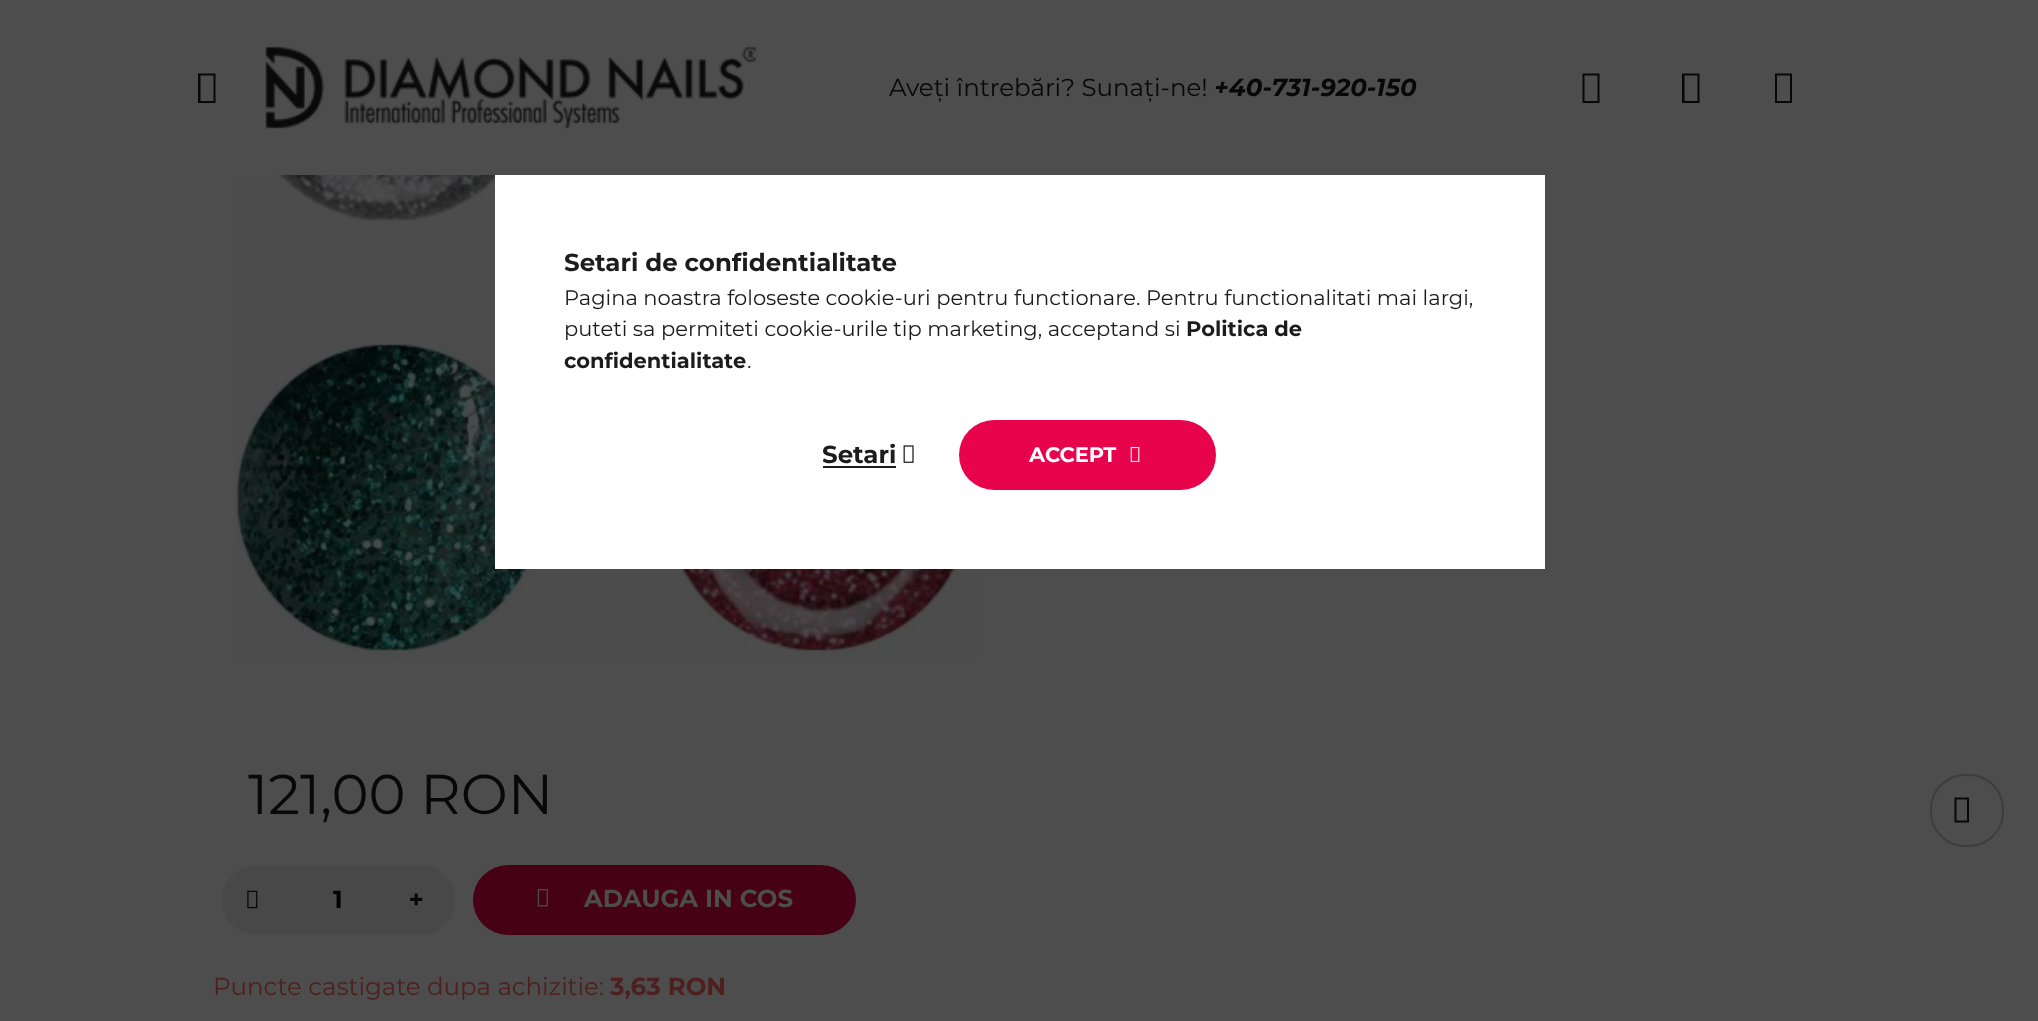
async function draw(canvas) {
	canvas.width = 2038;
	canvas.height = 1021;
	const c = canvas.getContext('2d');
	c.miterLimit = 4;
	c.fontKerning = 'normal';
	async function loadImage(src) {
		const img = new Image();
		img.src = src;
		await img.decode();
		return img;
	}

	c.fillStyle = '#4d4d4d';
	c.fillRect(0, 0, 2038, 1021);
	c.fillStyle = '#080808';
	c.beginPath();
	c.moveTo(198, 103);
	c.lineTo(198, 73.5);
	c.lineTo(215.5, 73.5);
	c.lineTo(215.5, 103);
	c.closePath();
	c.moveTo(200.5, 101);
	c.lineTo(213.5, 101);
	c.lineTo(213.5, 75.5);
	c.lineTo(200.5, 75.5);
	c.closePath();
	c.fill();
	c.drawImage(await loadImage('img1.png'), 265, 46, 491, 83);
	c.font = '24.5px Montserrat';
	c.fillText('Aveți întrebări? Sunați-ne!', 889, 96);
	c.font = 'italic bold 24.5px Montserrat';
	c.fillText('+40-731-920-150', 1214, 96);
	c.beginPath();
	c.moveTo(1582.5, 103);
	c.lineTo(1582.5, 73.5);
	c.lineTo(1599.5, 73.5);
	c.lineTo(1599.5, 103);
	c.closePath();
	c.moveTo(1584.5, 101);
	c.lineTo(1597.5, 101);
	c.lineTo(1597.5, 75.5);
	c.lineTo(1584.5, 75.5);
	c.closePath();
	c.fill();
	c.beginPath();
	c.moveTo(1682, 103);
	c.lineTo(1682, 73.5);
	c.lineTo(1699.5, 73.5);
	c.lineTo(1699.5, 103);
	c.closePath();
	c.moveTo(1684.5, 101);
	c.lineTo(1697.5, 101);
	c.lineTo(1697.5, 75.5);
	c.lineTo(1684.5, 75.5);
	c.closePath();
	c.fill();
	c.beginPath();
	c.moveTo(1775, 103);
	c.lineTo(1775, 73.5);
	c.lineTo(1792, 73.5);
	c.lineTo(1792, 103);
	c.closePath();
	c.moveTo(1777, 101);
	c.lineTo(1790, 101);
	c.lineTo(1790, 75.5);
	c.lineTo(1777, 75.5);
	c.closePath();
	c.fill();
	c.drawImage(await loadImage('img2.png'), 234, 175, 746, 484);
	c.font = '56px Montserrat';
	c.fillText('121,00 RON', 248, 814);
	c.fillStyle = '#484848';
	c.beginPath();
	c.roundRect(222, 865, 233, 70, 35);
	c.fill();
	c.drawImage(await loadImage('img3.png'), 247, 890, 11, 19);
	c.font = 'bold 24.5px Montserrat';
	c.fillStyle = '#000';
	c.fillText('1', 333, 908);
	c.font = '900 24.5px Noto Sans';
	c.fillStyle = '#080808';
	c.fillText('+', 409, 908);
	c.fillStyle = '#460117';
	c.beginPath();
	c.roundRect(473, 865, 383, 70, 35);
	c.fill();
	c.drawImage(await loadImage('img4.png'), 537, 889, 11, 18);
	c.font = 'bold 24.5px Montserrat';
	c.fillStyle = '#4d4d4d';
	c.fillText('ADAUGA IN COS', 584, 907);
	c.font = '24.5px Montserrat';
	c.fillStyle = '#4d1f1f';
	c.fillText('Puncte castigate dupa achizitie:', 213, 995);
	c.font = 'bold 24.5px Montserrat';
	c.fillText('3,63 RON', 610, 995);
	c.fillStyle = '#fff';
	c.fillRect(495, 175, 1050, 394);
	c.fillStyle = '#1c1c1c';
	c.fillText('Setari de confidentialitate', 564, 271);
	c.font = '21px Montserrat';
	c.fillText('Pagina noastra foloseste cookie-uri pentru functionare. Pentru functionalitati mai largi,', 564, 305);
	c.fillText('puteti sa permiteti cookie-urile tip marketing, acceptand si', 564, 336);
	c.font = 'bold 21px Montserrat';
	c.fillText('Politica de', 1186, 336);
	c.fillText('confidentialitate', 564, 368);
	c.font = '21px Montserrat';
	c.fillText('.', 747, 368);
	c.font = 'bold 24.5px Montserrat';
	c.fillText('Setari', 822, 463);
	c.fillRect(823, 466, 73, 2);
	c.drawImage(await loadImage('img5.png'), 903, 445, 11, 18);
	c.fillStyle = '#e8044c';
	c.beginPath();
	c.roundRect(959, 420, 257, 70, 35);
	c.fill();
	c.font = 'bold 21px Montserrat';
	c.fillStyle = '#fff';
	c.fillText('ACCEPT', 1029, 462);
	c.drawImage(await loadImage('img6.png'), 1130, 447, 10, 15);
	c.beginPath();
	c.roundRect(1931, 775, 72, 71, 34);
	c.strokeStyle = '#3d3d3d';
	c.lineWidth = 2;
	c.stroke();
	c.fillStyle = '#080808';
	c.beginPath();
	c.moveTo(1954.5, 822.5);
	c.lineTo(1954.5, 797.5);
	c.lineTo(1969, 797.5);
	c.lineTo(1969, 822.5);
	c.closePath();
	c.moveTo(1956.5, 820.5);
	c.lineTo(1967, 820.5);
	c.lineTo(1967, 799.5);
	c.lineTo(1956.5, 799.5);
	c.closePath();
	c.fill();
}

draw(document.querySelector('canvas'));
